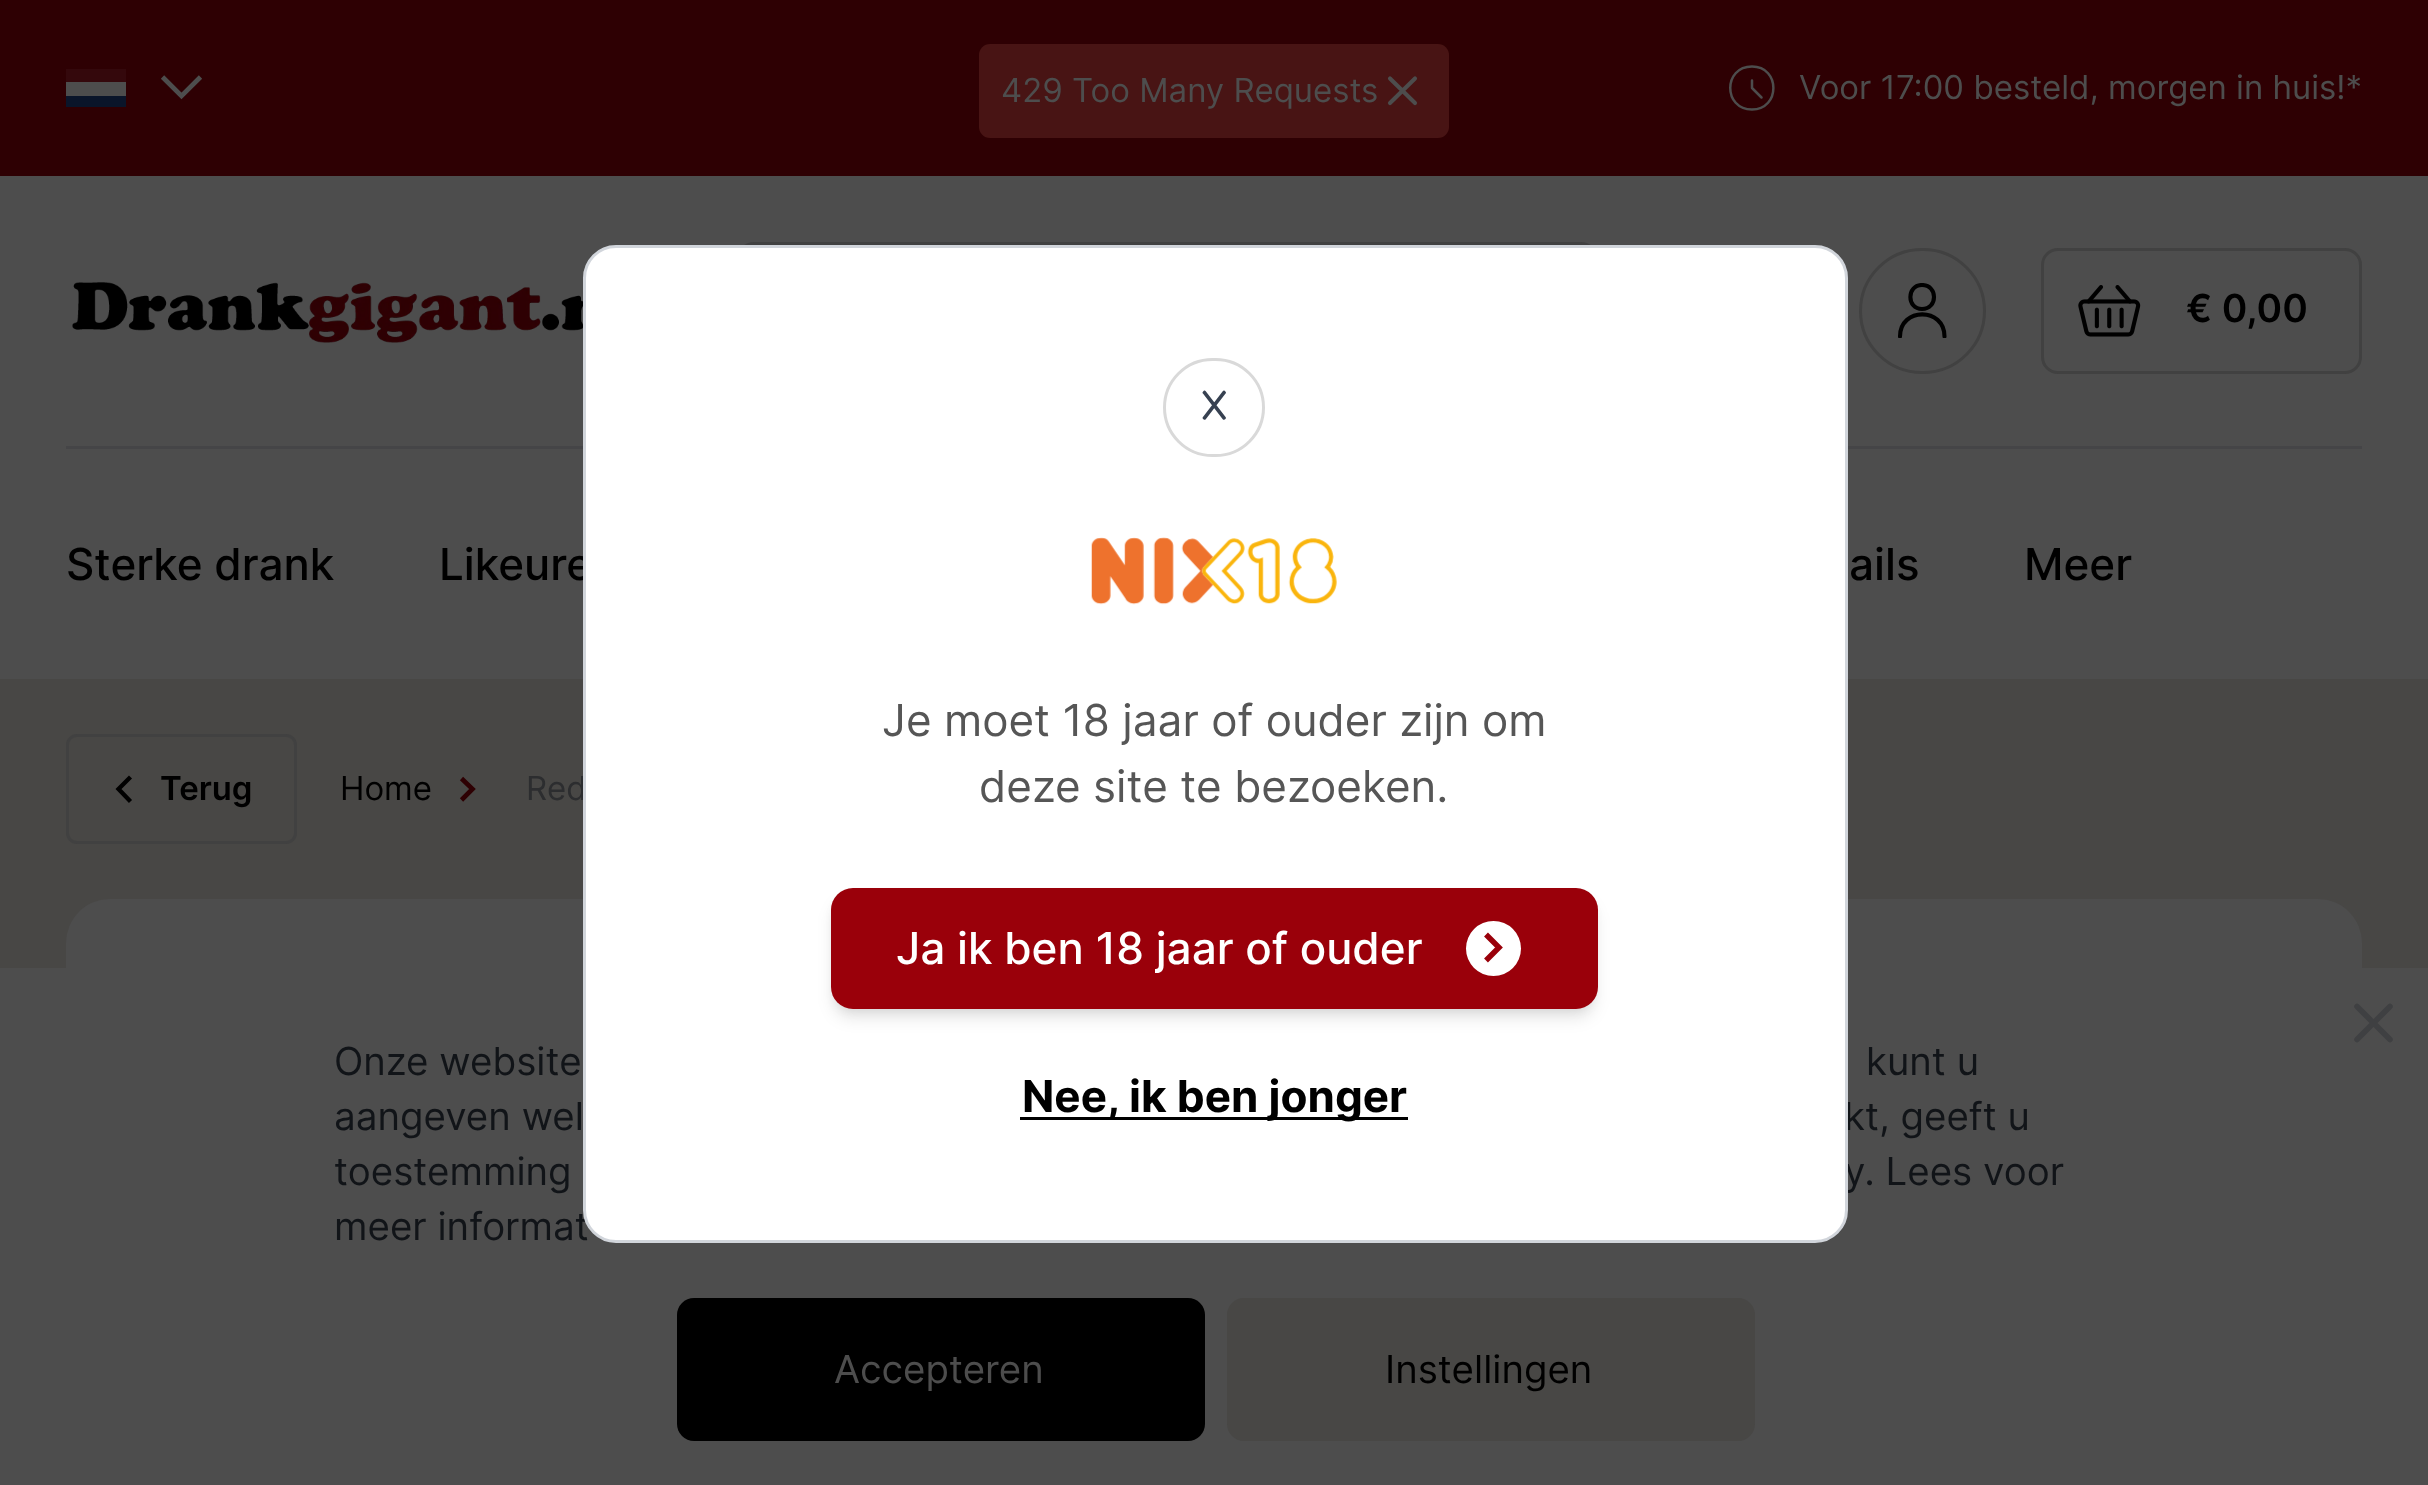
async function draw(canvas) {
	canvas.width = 2428;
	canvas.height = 1485;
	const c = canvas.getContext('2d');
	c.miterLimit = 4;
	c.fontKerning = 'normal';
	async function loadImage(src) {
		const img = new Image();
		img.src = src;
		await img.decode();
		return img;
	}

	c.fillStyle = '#4d4d4d';
	c.fillRect(0, 0, 2428, 1485);
	for (const [x, y, w, h, color] of [
		[0, 0, 2428, 176, '#2e0003'],
		[66, 96, 60, 11, '#0a152a'],
		[66, 82, 60, 14, '#4d4d4d'],
		[66, 69, 60, 13, '#34080c'],
	]) {
		c.fillStyle = color;
		c.fillRect(x, y, w, h);
	}
	c.beginPath();
	c.moveTo(200.5, 77);
	c.lineTo(181.5, 96);
	c.lineTo(162.5, 77);
	c.strokeStyle = '#4d4d4d';
	c.lineWidth = 4.7;
	c.stroke();
	c.beginPath();
	c.moveTo(1752, 109.5);
	c.bezierCurveTo(1780.5, 109.5, 1780.5, 66.5, 1752, 66.5);
	c.bezierCurveTo(1723, 66.5, 1723, 109.5, 1752, 109.5);
	c.closePath();
	c.moveTo(1752, 88);
	c.lineTo(1752, 80.5);
	c.moveTo(1752, 88);
	c.lineTo(1761.5, 97.5);
	c.lineWidth = 2.5;
	c.lineCap = 'round';
	c.lineJoin = 'round';
	c.stroke();
	c.font = '33px Inter';
	c.fillStyle = '#4d4d4d';
	c.fillText('Voor 17:00 besteld, morgen in huis!*', 1799, 99);
	c.drawImage(await loadImage('img1.png'), 72, 282, 511, 61);
	c.beginPath();
	c.roundRect(738.5, 243.5, 858, 135, 15.5);
	c.strokeStyle = '#414141';
	c.lineWidth = 3;
	c.lineJoin = 'miter';
	c.stroke();
	c.beginPath();
	c.roundRect(1860.5, 249.5, 124, 123, 61.5);
	c.stroke();
	c.save();
	c.beginPath();
	c.rect(1895, 283, 55, 55);
	c.clip();
	c.beginPath();
	c.moveTo(1895, 283);
	c.lineTo(1958, 283);
	c.lineTo(1958, 344);
	c.lineTo(1895, 344);
	c.closePath();
	c.clip();
	c.beginPath();
	c.moveTo(1922, 309);
	c.bezierCurveTo(1938, 309, 1938, 285, 1922, 285);
	c.bezierCurveTo(1906.5, 285, 1906.5, 309, 1922, 309);
	c.closePath();
	c.moveTo(1900, 336.5);
	c.bezierCurveTo(1900, 307, 1944.5, 307, 1944.5, 336.5);
	c.strokeStyle = '#000';
	c.lineWidth = 4.1;
	c.lineJoin = 'round';
	c.stroke();
	c.restore();
	c.beginPath();
	c.roundRect(2042.5, 249.5, 318, 123, 15.5);
	c.stroke();
	c.drawImage(await loadImage('img2.png'), 2078, 285, 63, 52);
	c.font = '600 38.5px Inter';
	c.fillStyle = '#000';
	c.fillText('€ 0,00', 2186, 322);
	c.fillStyle = '#454547';
	c.fillRect(66, 446, 2296, 3);
	c.font = '500 44px Inter';
	c.fillStyle = '#000';
	for (const [text, x, y] of [
		['Sterke drank', 66, 580],
		['Likeure', 439, 580],
		['ails', 1849, 580],
		['Meer', 2024, 580],
	]) {
		c.fillText(text, x, y);
	}
	c.fillStyle = '#481414';
	c.beginPath();
	c.roundRect(979, 44, 470, 94, 11);
	c.fill();
	c.font = '33px Inter';
	c.fillStyle = '#4d4d4d';
	c.fillText('429 Too Many Requests', 1001, 102);
	c.beginPath();
	c.moveTo(1390, 103);
	c.lineTo(1415, 78.5);
	c.moveTo(1390, 78.5);
	c.lineTo(1415, 103);
	c.strokeStyle = '#4d4d4d';
	c.lineWidth = 4.1;
	c.lineJoin = 'round';
	c.stroke();
	c.fillStyle = '#484745';
	c.fillRect(0, 679, 2428, 289);
	c.fillStyle = '#4d4d4d';
	c.beginPath();
	c.roundRect(66, 899, 2296, 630, 44);
	c.fill();
	c.beginPath();
	c.roundRect(67.5, 735.5, 228, 107, 9.5);
	c.strokeStyle = '#414141';
	c.lineWidth = 3;
	c.lineJoin = 'miter';
	c.stroke();
	c.beginPath();
	c.moveTo(130.5, 777);
	c.lineTo(118.5, 789);
	c.lineTo(130.5, 801.5);
	c.strokeStyle = '#000';
	c.lineWidth = 4.3;
	c.lineCap = 'butt';
	c.stroke();
	c.font = '600 33px Inter';
	c.fillStyle = '#000';
	c.fillText('Terug', 160, 800);
	c.font = '33px Inter';
	c.fillText('Home', 340, 800);
	c.beginPath();
	c.moveTo(461.5, 778.5);
	c.lineTo(472.5, 789);
	c.lineTo(461.5, 800);
	c.strokeStyle = '#2e0003';
	c.lineWidth = 4.6;
	c.stroke();
	c.fillStyle = '#2c2d2f';
	c.fillText('Red', 526, 800);
	c.font = '38.5px Inter';
	c.fillStyle = '#111418';
	for (const [text, x, y] of [
		['kt, geeft u', 1844, 1130],
		['y. Lees voor', 1844, 1185],
		['meer informat', 334, 1240],
	]) {
		c.fillText(text, x, y);
	}
	c.fillStyle = '#fff';
	c.beginPath();
	c.roundRect(584.5, 246.5, 1262, 995, 31.5);
	c.fill();
	c.strokeStyle = '#d1d5db';
	c.lineWidth = 3;
	c.stroke();
	c.beginPath();
	c.roundRect(1164.5, 359.5, 99, 96, 48);
	c.strokeStyle = '#d9d9d9';
	c.stroke();
	c.font = '41px Fredoka';
	c.fillStyle = '#374151';
	c.fillText('X', 1200, 419);
	c.drawImage(await loadImage('img3.png'), 1091, 537, 246, 68);
	c.font = '44px Inter';
	c.fillStyle = '#565656';
	c.fillText('Je moet 18 jaar of ouder zijn om', 882, 736);
	c.fillText('deze site te bezoeken.', 979, 802);
	c.fillStyle = '#0000001a';
	c.filter = 'blur(5.5px)';
	c.beginPath();
	c.roundRect(836, 899, 756, 110, 17);
	c.fill();
	c.filter = 'none';
	c.filter = 'blur(8px)';
	c.beginPath();
	c.roundRect(833, 902, 762, 116, 19);
	c.fill();
	c.filter = 'none';
	c.fillStyle = '#9a000a';
	c.beginPath();
	c.roundRect(831, 888, 767, 121, 22);
	c.fill();
	c.font = '500 44px Inter';
	c.fillStyle = '#fff';
	c.fillText('Ja ik ben 18 jaar of ouder', 896, 964);
	c.beginPath();
	c.arc(1493.5, 948.5, 27.5, 0, 2 * Math.PI);
	c.fill();
	c.beginPath();
	c.moveTo(1486, 934.5);
	c.lineTo(1499, 947.5);
	c.lineTo(1486, 960.5);
	c.strokeStyle = '#9a000a';
	c.lineWidth = 5.5;
	c.stroke();
	c.fillStyle = '#000';
	c.fillRect(1020, 1117, 388, 3);
	c.font = 'bold 44px Inter';
	c.fillText('Nee, ik ben jonger', 1022, 1112);
	c.beginPath();
	c.moveTo(2357, 1039.5);
	c.lineTo(2390, 1006.5);
	c.moveTo(2357, 1006.5);
	c.lineTo(2390, 1039.5);
	c.strokeStyle = '#3f4042';
	c.lineCap = 'round';
	c.lineJoin = 'round';
	c.stroke();
	c.font = '38.5px Inter';
	c.fillStyle = '#111418';
	for (const [text, x, y] of [
		['Onze website', 334, 1075],
		['kunt u', 1866, 1075],
		['aangeven wel', 334, 1130],
		['toestemming', 334, 1185],
	]) {
		c.fillText(text, x, y);
	}
	c.fillStyle = '#000';
	c.beginPath();
	c.roundRect(677, 1298, 528, 143, 17);
	c.fill();
	c.fillStyle = '#4d4d4d';
	c.fillText('Accepteren', 834, 1383);
	c.fillStyle = '#484745';
	c.beginPath();
	c.roundRect(1227, 1298, 528, 143, 17);
	c.fill();
	c.fillStyle = '#000';
	c.fillText('Instellingen', 1385, 1383);
}

draw(document.querySelector('canvas'));
